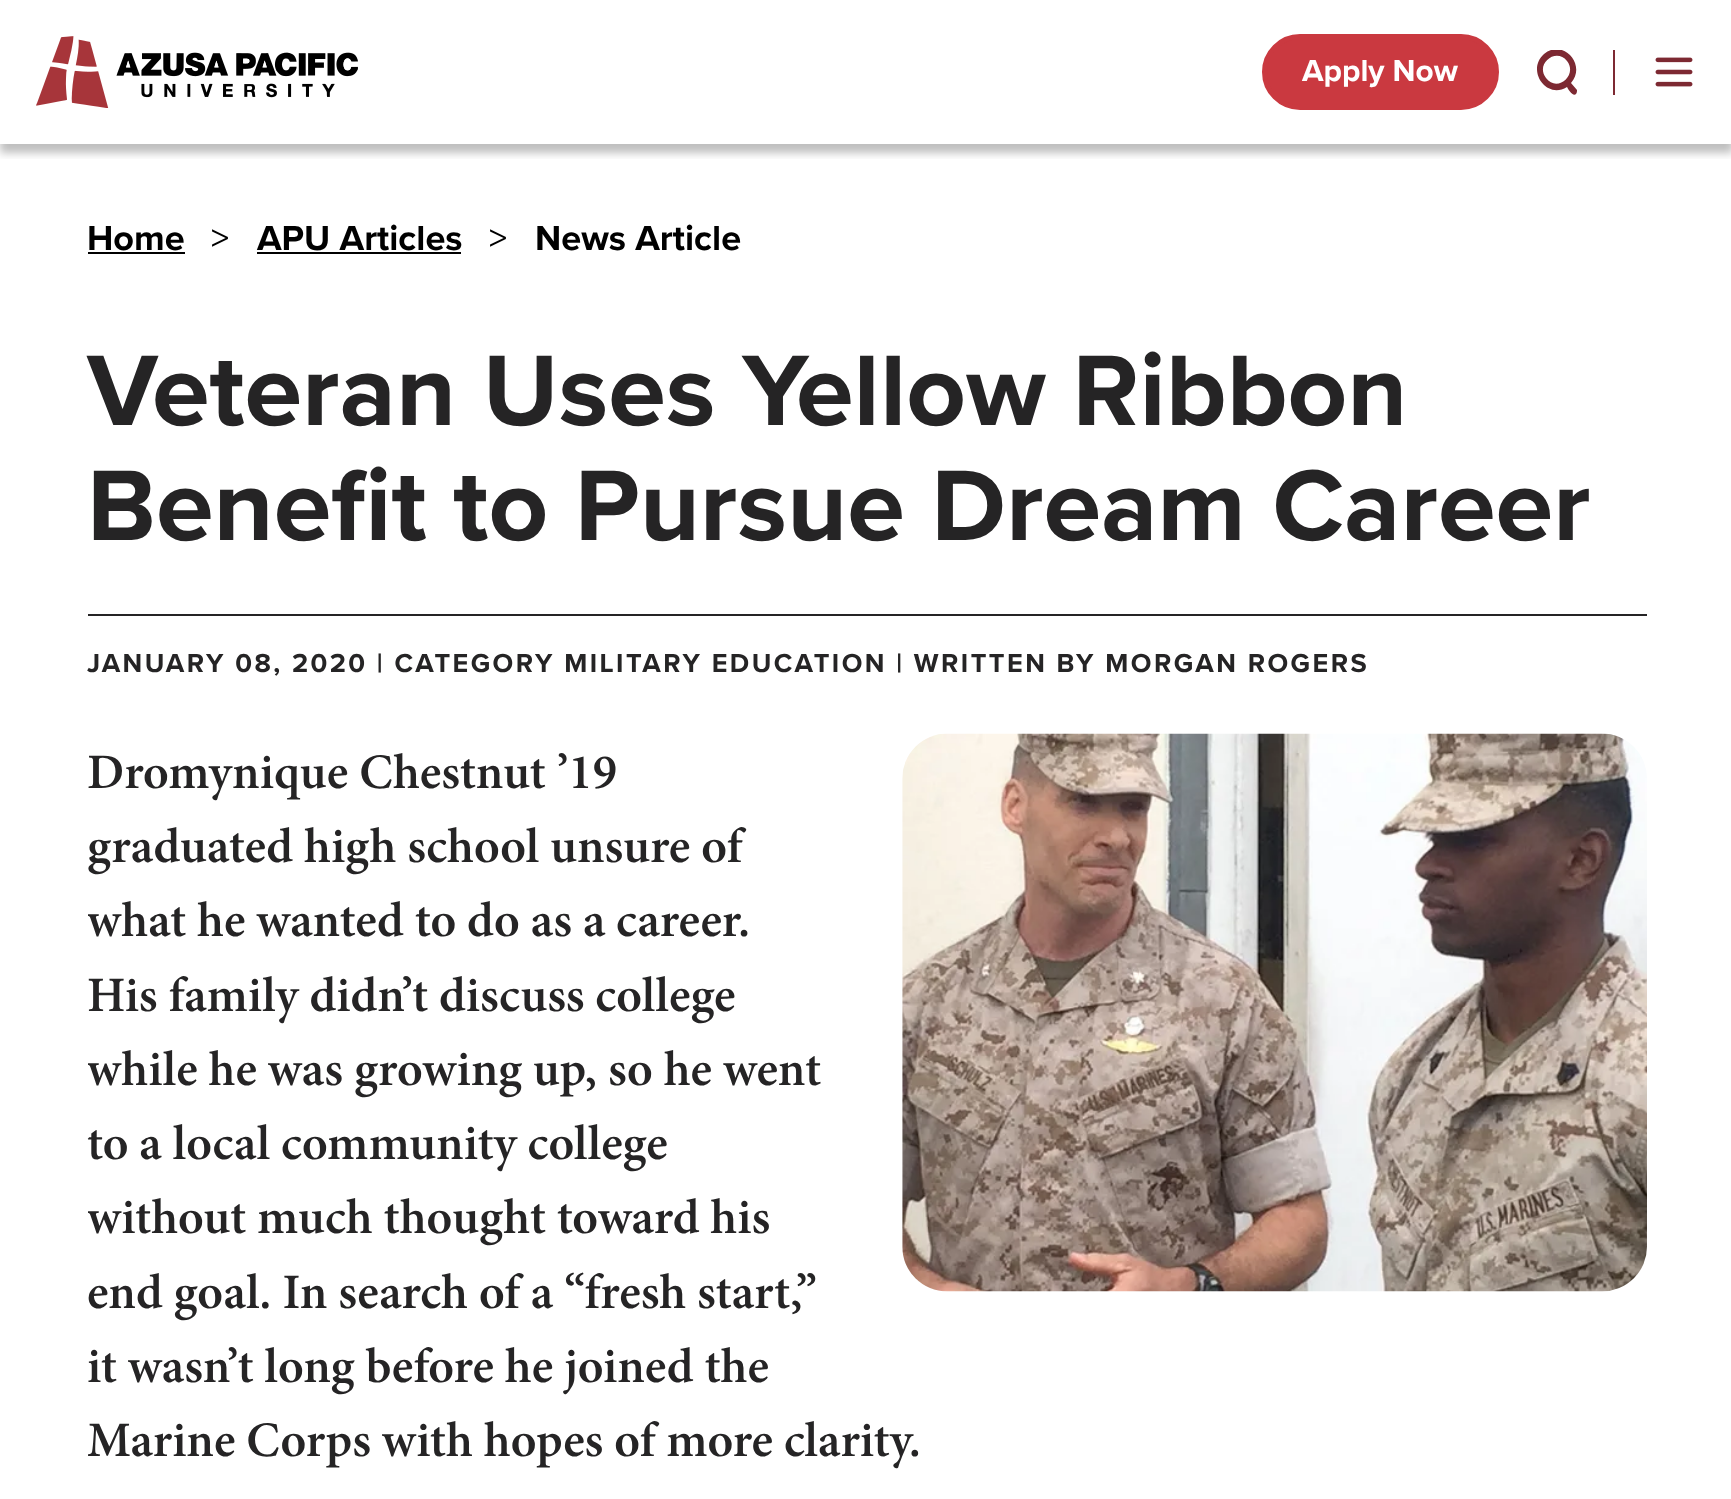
async function draw(canvas) {
	canvas.width = 1731;
	canvas.height = 1499;
	const c = canvas.getContext('2d');
	c.miterLimit = 4;
	c.fontKerning = 'normal';
	async function loadImage(src) {
		const img = new Image();
		img.src = src;
		await img.decode();
		return img;
	}

	c.fillStyle = '#fff';
	c.fillRect(0, 0, 1731, 1499);
	c.save();
	c.beginPath();
	c.rect(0, 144, 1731, 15);
	c.clip();
	c.fillStyle = '#00000040';
	c.filter = 'blur(4.5px)';
	c.beginPath();
	c.rect(0, 9, 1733, 144);
	c.fill();
	c.filter = 'none';
	c.restore();
	c.drawImage(await loadImage('img1.png'), 36, 36, 322, 72);
	c.fillStyle = '#ca3940';
	c.beginPath();
	c.roundRect(1264.5, 36.5, 232, 71, 35.5);
	c.fill();
	c.strokeStyle = '#ca3940';
	c.lineWidth = 5;
	c.stroke();
	c.font = 'bold 31.5px Proxima Nova';
	c.fillStyle = '#fff';
	c.fillText('Apply Now', 1302, 81);
	c.save();
	c.beginPath();
	c.rect(1535, 50, 45, 45);
	c.clip();
	c.fillStyle = '#7d2932';
	c.beginPath();
	c.moveTo(1544, 54);
	c.bezierCurveTo(1526, 70, 1546, 100, 1567, 87);
	c.bezierCurveTo(1568, 89, 1573, 97, 1576, 94);
	c.bezierCurveTo(1577, 93, 1577, 91, 1577, 90);
	c.lineTo(1571, 83);
	c.bezierCurveTo(1587, 65, 1563, 38, 1544, 54);
	c.closePath();
	c.moveTo(1546, 78);
	c.bezierCurveTo(1535, 64, 1556, 47, 1567, 61);
	c.bezierCurveTo(1578, 75, 1557, 93, 1546, 78);
	c.closePath();
	c.fill('evenodd');
	c.restore();
	c.fillStyle = '#7d2932';
	c.fillRect(1613, 50, 2, 45);
	c.drawImage(await loadImage('img2.png'), 1655, 57, 38, 30);
	c.font = 'bold 36px Proxima Nova';
	c.fillStyle = '#000';
	c.fillText('Home', 87, 250);
	c.fillRect(88, 252, 97, 2);
	c.font = '36px Proxima Nova';
	c.fillText('>', 211, 250);
	c.font = 'bold 36px Proxima Nova';
	c.fillText('APU Articles', 257, 250);
	c.fillRect(257, 252, 204, 2);
	c.font = '36px Proxima Nova';
	c.fillText('>', 489, 250);
	c.font = 'bold 36px Proxima Nova';
	c.fillText('News Article', 535, 250);
	c.font = 'bold 104px Proxima Nova';
	c.fillStyle = '#252425';
	c.fillText('Veteran Uses Yellow Ribbon', 87, 425);
	c.fillText('Benefit to Pursue Dream Career', 87, 540);
	c.fillRect(88, 614, 1559, 2);
	c.letterSpacing = '2.43px';
	c.font = 'bold 27px Proxima Nova';
	c.fillText('JANUARY 08, 2020 | CATEGORY MILITARY EDUCATION | WRITTEN BY MORGAN ROGERS', 87, 672);
	c.letterSpacing = '0px';
	c.font = '600 49.5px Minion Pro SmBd';
	c.fillText('Dromynique Chestnut ’19', 87, 788);
	c.fillText('graduated high school unsure of', 87, 862);
	c.save();
	c.beginPath();
	c.rect(88, 734, 1559, 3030);
	c.clip();
	c.fillText('what he wanted to do as a', 87, 936);
	c.restore();
	c.fillText('career.', 616, 936);
	c.fillText('His family didn’t discuss college', 87, 1011);
	c.save();
	c.beginPath();
	c.rect(88, 734, 1559, 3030);
	c.clip();
	c.fillText('while he was growing up, so he went', 87, 1085);
	c.restore();
	c.fillText('to a local community college', 87, 1159);
	c.save();
	c.beginPath();
	c.rect(88, 734, 1559, 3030);
	c.clip();
	c.fillText('without much thought toward his', 87, 1233);
	c.restore();
	for (const [text, x, y] of [
		['end goal. In search of a “fresh start,”', 87, 1308],
		['it wasn’t long before he joined the', 87, 1382],
		['Marine Corps with hopes of more clarity.', 87, 1456],
	]) {
		c.fillText(text, x, y);
	}
	c.drawImage(await loadImage('img3.png'), 902, 733, 745, 559);
}

draw(document.querySelector('canvas'));
